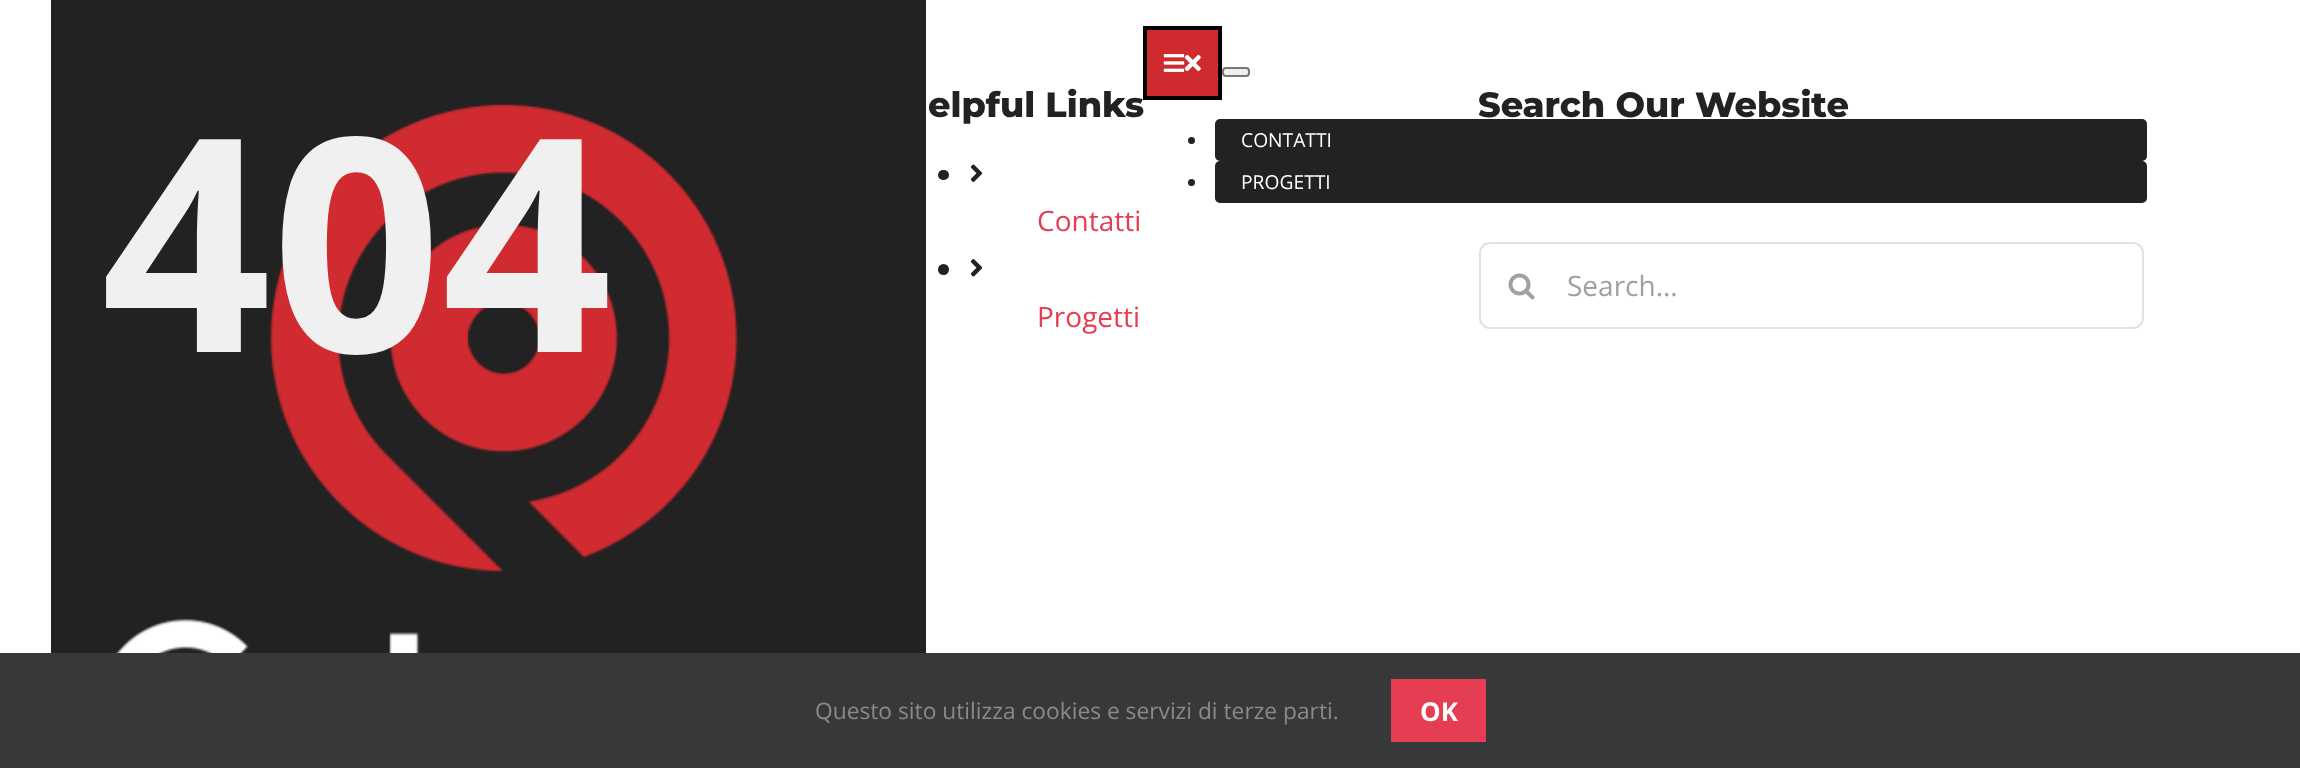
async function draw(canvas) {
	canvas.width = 2300;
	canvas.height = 768;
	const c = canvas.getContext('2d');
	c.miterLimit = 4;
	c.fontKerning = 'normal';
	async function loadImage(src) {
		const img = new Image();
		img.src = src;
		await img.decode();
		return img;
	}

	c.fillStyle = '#fff';
	c.fillRect(0, 0, 2300, 768);
	c.fillStyle = '#222';
	c.fillRect(51, 0, 875, 653);
	c.drawImage(await loadImage('img4.png'), 116, 104, 623, 549);
	c.font = 'bold 298px Open Sans';
	c.fillStyle = '#f0f0f0';
	c.fillText('404', 101, 352);
	c.fillStyle = '#cf2b2e';
	c.beginPath();
	c.rect(1145, 28, 75, 70);
	c.fill();
	c.strokeStyle = '#000';
	c.lineWidth = 4;
	c.stroke();
	c.font = '800 35px Montserrat';
	c.fillStyle = '#222';
	c.fillText('elpful Links', 928, 117);
	c.beginPath();
	c.roundRect(938, 170, 11, 10, 5);
	c.fill();
	c.drawImage(await loadImage('img1.png'), 970, 164, 13, 18);
	c.font = '28px Open Sans';
	c.fillStyle = '#e53d51';
	c.fillText('Contatti', 1037, 231);
	c.fillStyle = '#222';
	c.beginPath();
	c.arc(943.5, 269.5, 5.5, 0, 2 * Math.PI);
	c.fill();
	c.drawImage(await loadImage('img2.png'), 970, 259, 13, 18);
	c.fillStyle = '#e53d51';
	c.fillText('Progetti', 1037, 327);
	c.font = '800 35px Montserrat';
	c.fillStyle = '#222';
	c.fillText('Search Our Website', 1478, 117);
	c.beginPath();
	c.roundRect(1480, 243, 663, 85, 10);
	c.strokeStyle = '#e2e2e2';
	c.lineWidth = 2;
	c.stroke();
	c.drawImage(await loadImage('img3.png'), 1508, 273, 27, 27);
	c.font = '28px Open Sans';
	c.fillStyle = '#9ea0a4';
	c.fillText('Search...', 1567, 296);
	c.drawImage(await loadImage('img5.png'), 1163, 54, 22, 18);
	c.drawImage(await loadImage('img6.png'), 1184, 55, 17, 16);
	c.fillStyle = '#efefef';
	c.beginPath();
	c.roundRect(1223, 68, 26, 8, 3);
	c.fill();
	c.strokeStyle = '#767676';
	c.stroke();
	c.fillStyle = '#222';
	c.beginPath();
	c.roundRect(1215, 119, 932, 42, 5);
	c.fill();
	c.beginPath();
	c.arc(1191.5, 140.5, 3.5, 0, 2 * Math.PI);
	c.fill();
	c.font = '19.25px Open Sans';
	c.fillStyle = '#fff';
	c.fillText('CONTATTI', 1241, 147);
	c.fillStyle = '#222';
	c.beginPath();
	c.roundRect(1215, 161, 932, 42, 5);
	c.fill();
	c.beginPath();
	c.arc(1191.5, 182.5, 3.5, 0, 2 * Math.PI);
	c.fill();
	c.fillStyle = '#fff';
	c.fillText('PROGETTI', 1241, 189);
	c.fillStyle = '#363839';
	c.fillRect(0, 653, 2300, 115);
	c.font = '22.75px Open Sans';
	c.fillStyle = '#8c8989';
	c.fillText('Questo sito utilizza cookies e servizi di terze parti.', 815, 719);
	c.fillStyle = '#e53d51';
	c.fillRect(1391, 679, 95, 63);
	c.font = 'bold 26px Open Sans';
	c.fillStyle = '#fff';
	c.fillText('OK', 1420, 721);
}

draw(document.querySelector('canvas'));
